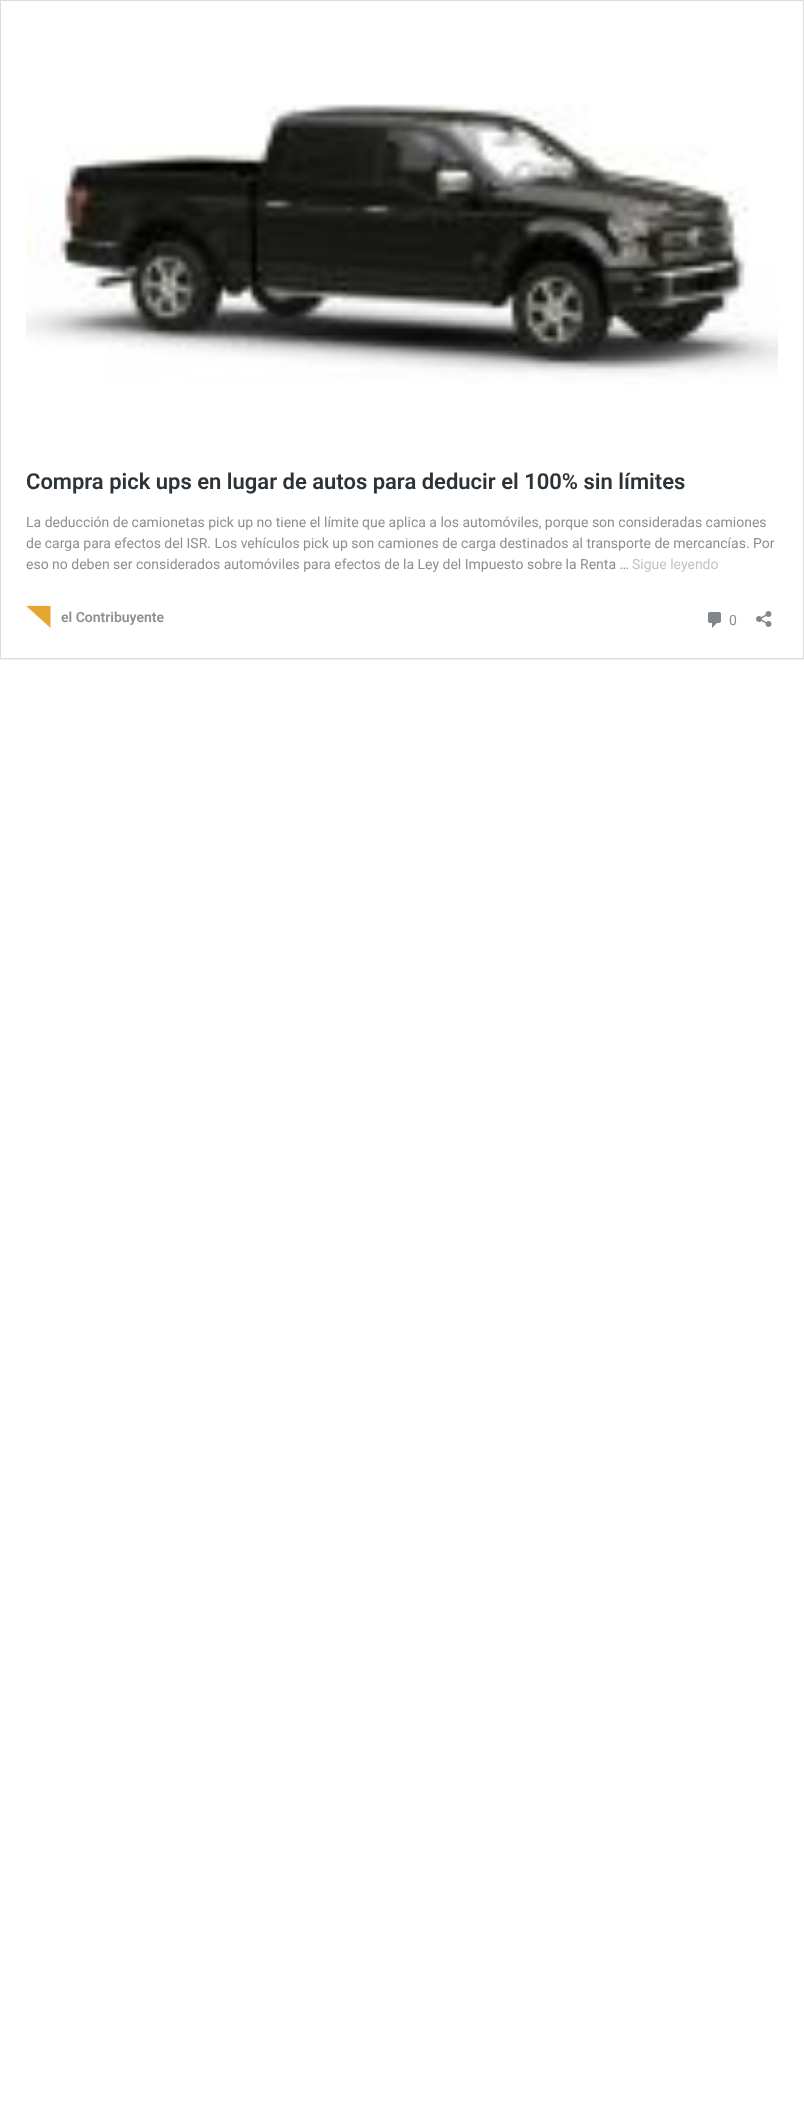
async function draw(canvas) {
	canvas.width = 804;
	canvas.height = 2128;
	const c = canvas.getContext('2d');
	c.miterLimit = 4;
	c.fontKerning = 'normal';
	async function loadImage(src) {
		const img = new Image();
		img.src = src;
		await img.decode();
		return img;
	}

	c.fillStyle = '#fff';
	c.fillRect(0, 0, 804, 2128);
	c.save();
	c.beginPath();
	c.rect(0, 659, 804, 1);
	c.clip();
	c.fillStyle = '#0000000d';
	c.filter = 'blur(0.5px)';
	c.beginPath();
	c.rect(0, 1, 804, 659);
	c.fill();
	c.filter = 'none';
	c.restore();
	c.strokeStyle = '#dcdcde';
	c.strokeRect(0.5, 0.5, 803, 658);
	c.drawImage(await loadImage('img1.png'), 26, 104, 752, 281);
	c.font = '600 22px Roboto';
	c.fillStyle = '#2c3338';
	c.fillText('Compra pick ups en lugar de autos para deducir el 100% sin límites', 26, 489);
	c.font = '14px Roboto';
	c.fillStyle = '#8c8f94';
	for (const [text, x, y] of [
		['La deducción de camionetas pick up no tiene el límite que aplica a los automóviles, porque son consideradas camiones', 26, 527],
		['de carga para efectos del ISR. Los vehículos pick up son camiones de carga destinados al transporte de mercancías. Por', 26, 548],
		['eso no deben ser considerados automóviles para efectos de la Ley del Impuesto sobre la Renta …', 26, 569],
	]) {
		c.fillText(text, x, y);
	}
	c.fillStyle = '#c3c4c7';
	c.fillText('Sigue leyendo', 632, 569);
	c.drawImage(await loadImage('img2.png'), 26, 605, 25, 23);
	c.font = '600 14px Roboto';
	c.fillStyle = '#8c8f94';
	c.fillText('el Contribuyente', 61, 622);
	c.drawImage(await loadImage('img3.png'), 708, 612, 13, 16);
	c.font = '14px Roboto';
	c.fillText('0', 729, 625);
	c.drawImage(await loadImage('img4.png'), 756, 611, 16, 16);
}

draw(document.querySelector('canvas'));
